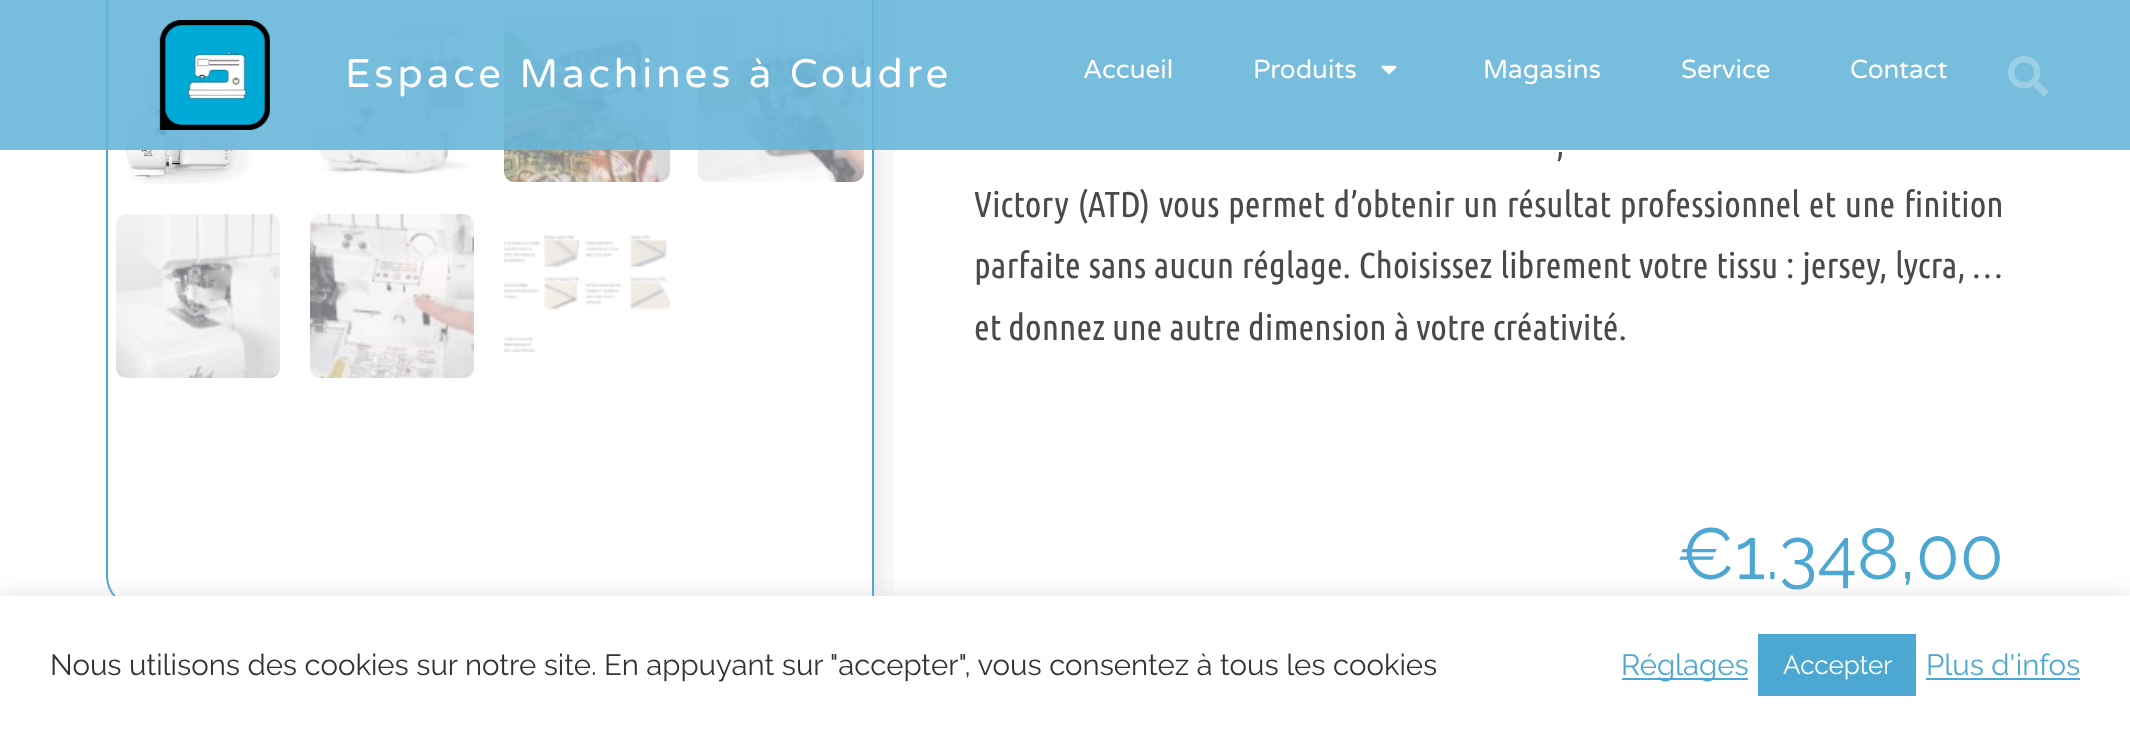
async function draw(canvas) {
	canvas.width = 2130;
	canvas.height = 734;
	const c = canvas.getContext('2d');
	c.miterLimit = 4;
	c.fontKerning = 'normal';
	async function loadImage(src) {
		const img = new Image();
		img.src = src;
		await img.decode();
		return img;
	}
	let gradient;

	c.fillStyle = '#fff';
	c.fillRect(0, 0, 2130, 734);
	c.save();
	c.beginPath();
	c.rect(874, 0, 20, 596);
	c.clip();
	c.fillStyle = '#00000026';
	c.filter = 'blur(20px)';
	c.beginPath();
	c.roundRect(148, -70, 724, 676, 10);
	c.fill();
	c.filter = 'none';
	c.restore();
	c.beginPath();
	c.moveTo(138, -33);
	c.lineTo(842, -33);
	c.bezierCurveTo(859, -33, 873, -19, 873, -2);
	c.lineTo(873, 607);
	c.lineTo(138, 607);
	c.bezierCurveTo(121, 607, 107, 593, 107, 576);
	c.lineTo(107, -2);
	c.bezierCurveTo(107, -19, 121, -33, 138, -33);
	c.closePath();
	c.strokeStyle = '#4ca8d2';
	c.lineWidth = 2;
	c.stroke();
	c.drawImage(await loadImage('img4.png'), 125, 76, 127, 108);
	c.drawImage(await loadImage('img5.png'), 316, 20, 155, 155);
	c.drawImage(await loadImage('img6.png'), 504, 18, 166, 164);
	c.drawImage(await loadImage('img7.png'), 698, 18, 166, 164);
	c.fillStyle = '#ffffff99';
	c.fillRect(106, 0, 790, 150);
	gradient = c.createRadialGradient(2470, 0, 0, 2470, 0, 3493);
	gradient.addColorStop(1, '#4ca8d2c2');
	gradient.addColorStop(1, '#ffffff75');
	c.fillStyle = gradient;
	c.beginPath();
	c.rect(0, 0, 2130, 150);
	c.save();
	c.clip();
	c.scale(1, 246 / 3493);
	c.fillRect(0, 0, 2130, 10423);
	c.restore();
	c.drawImage(await loadImage('img1.png'), 159, 20, 111, 110);
	c.letterSpacing = '4px';
	c.font = '40px Varela Round';
	c.fillStyle = '#fff';
	c.fillText('Espace Machines à Coudre', 345, 87);
	c.letterSpacing = '0px';
	c.font = '26px Varela Round';
	c.fillText('Accueil', 1083, 78);
	c.fillText('Produits', 1253, 78);
	c.drawImage(await loadImage('img2.png'), 1381, 65, 16, 10);
	for (const [text, x, y] of [
		['Magasins', 1483, 78],
		['Service', 1681, 78],
		['Contact', 1850, 78],
	]) {
		c.fillText(text, x, y);
	}
	c.drawImage(await loadImage('img3.png'), 2008, 56, 40, 40);
	c.drawImage(await loadImage('img8.png'), 116, 214, 164, 164);
	c.drawImage(await loadImage('img9.png'), 310, 214, 164, 164);
	c.drawImage(await loadImage('img10.png'), 504, 235, 166, 118);
	c.wordSpacing = '4px';
	c.font = '36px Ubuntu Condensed';
	c.fillStyle = '#4a4a4a';
	c.fillText(',', 1556, 156);
	c.wordSpacing = '1.75px';
	c.fillText('Victory (ATD) vous permet d’obtenir un résultat professionnel et une finition', 974, 217);
	c.wordSpacing = '0.75px';
	c.fillText('parfaite sans aucun réglage. Choisissez librement votre tissu : jersey, lycra, …', 974, 278);
	c.wordSpacing = '0px';
	c.fillText('et donnez une autre dimension à votre créativité.', 974, 340);
	c.font = '72px Raleway';
	c.fillStyle = '#4ca8d2';
	c.fillText('€1.348,00', 1677, 579);
	c.fillStyle = '#acabab4d';
	c.filter = 'blur(10px)';
	c.beginPath();
	c.rect(0, 594, 2130, 138);
	c.fill();
	c.filter = 'none';
	c.fillStyle = '#fff';
	c.fillRect(0, 596, 2130, 138);
	c.font = '29.35px Raleway';
	c.fillStyle = '#333';
	c.fillText('Nous utilisons des cookies sur notre site. En appuyant sur "accepter", vous consentez à tous les cookies', 50, 675);
	c.fillStyle = '#4ca8d2';
	c.fillRect(1622, 678, 126, 2);
	c.fillText('Réglages', 1621, 675);
	c.fillRect(1758, 634, 158, 62);
	c.font = '26px Raleway';
	c.fillStyle = '#fff';
	c.fillText('Accepter', 1783, 674);
	c.font = '29.35px Raleway';
	c.fillStyle = '#4ca8d2';
	c.fillText('Plus d\'infos', 1926, 675);
	c.fillRect(1926, 678, 154, 2);
}

draw(document.querySelector('canvas'));
